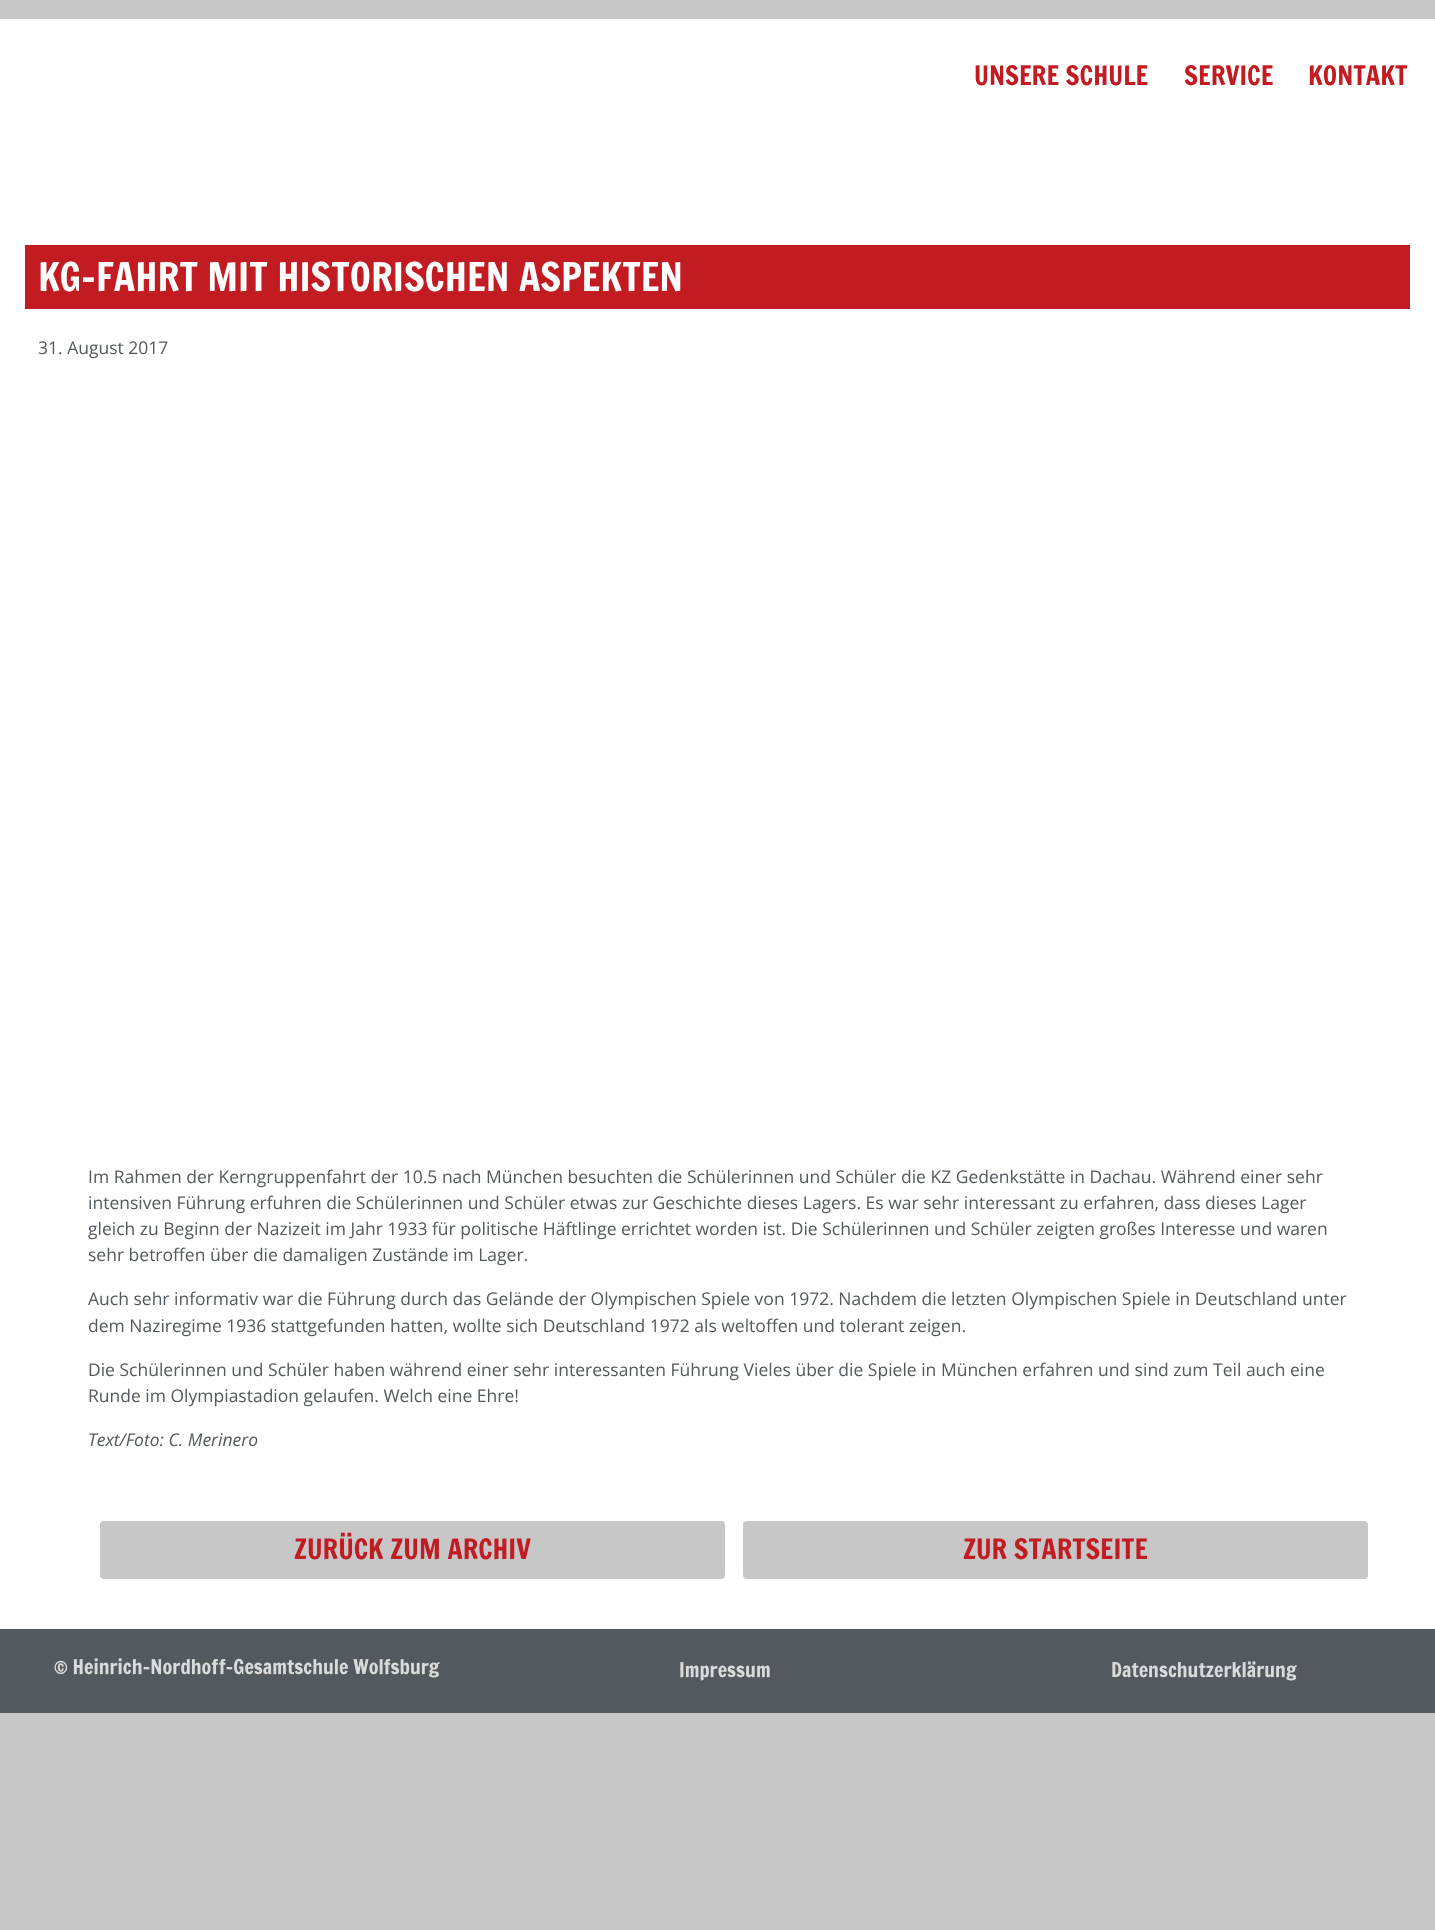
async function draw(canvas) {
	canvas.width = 1435;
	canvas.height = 1930;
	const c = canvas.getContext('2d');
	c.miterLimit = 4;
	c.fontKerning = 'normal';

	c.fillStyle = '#c7c7c7';
	c.fillRect(0, 0, 1435, 1930);
	c.fillStyle = '#fff';
	c.fillRect(0, 19, 1435, 101);
	c.font = '26.25px Francois One';
	c.fillStyle = '#c21b22';
	for (const [text, x, y] of [
		['UNSERE SCHULE', 974, 85],
		['SERVICE', 1184, 85],
		['KONTAKT', 1308, 85],
	]) {
		c.fillText(text, x, y);
	}
	c.fillStyle = '#fff';
	c.fillRect(0, 120, 1435, 1509);
	c.fillStyle = '#c21b22';
	c.fillRect(25, 245, 1385, 64);
	c.font = '38.75px Francois One';
	c.fillStyle = '#fff';
	c.fillText('KG-FAHRT MIT HISTORISCHEN ASPEKTEN', 38, 291);
	c.font = '17.5px Open Sans';
	c.fillStyle = '#54595f';
	for (const [text, x, y] of [
		['31. August 2017', 38, 354],
		['Im Rahmen der Kerngruppenfahrt der 10.5 nach München besuchten die Schülerinnen und Schüler die KZ Gedenkstätte in Dachau. Während einer sehr', 88, 1183],
		['intensiven Führung erfuhren die Schülerinnen und Schüler etwas zur Geschichte dieses Lagers. Es war sehr interessant zu erfahren, dass dieses Lager', 88, 1209],
		['gleich zu Beginn der Nazizeit im Jahr 1933 für politische Häftlinge errichtet worden ist. Die Schülerinnen und Schüler zeigten großes Interesse und waren', 88, 1235],
		['sehr betroffen über die damaligen Zustände im Lager.', 88, 1261],
		['Auch sehr informativ war die Führung durch das Gelände der Olympischen Spiele von 1972. Nachdem die letzten Olympischen Spiele in Deutschland unter', 88, 1305],
		['dem Naziregime 1936 stattgefunden hatten, wollte sich Deutschland 1972 als weltoffen und tolerant zeigen.', 88, 1332],
		['Die Schülerinnen und Schüler haben während einer sehr interessanten Führung Vieles über die Spiele in München erfahren und sind zum Teil auch eine', 88, 1376],
		['Runde im Olympiastadion gelaufen. Welch eine Ehre!', 88, 1402],
	]) {
		c.fillText(text, x, y);
	}
	c.font = 'italic 17.5px Open Sans';
	c.fillText('Text/Foto: C. Merinero', 88, 1446);
	c.fillStyle = '#c7c7c7';
	c.beginPath();
	c.roundRect(100, 1521, 625, 58, 4);
	c.fill();
	c.font = '27.5px Francois One';
	c.fillStyle = '#c21b22';
	c.fillText('ZURÜCK ZUM ARCHIV', 294, 1559);
	c.fillStyle = '#c7c7c7';
	c.beginPath();
	c.roundRect(743, 1521, 625, 58, 4);
	c.fill();
	c.fillStyle = '#c21b22';
	c.fillText('ZUR STARTSEITE', 963, 1559);
	c.fillStyle = '#54595f';
	c.fillRect(0, 1629, 1435, 84);
	c.font = '20px Francois One';
	c.fillStyle = '#dadada';
	for (const [text, x, y] of [
		['© Heinrich-Nordhoff-Gesamtschule Wolfsburg', 54, 1674],
		['Impressum', 679, 1677],
		['Datenschutzerklärung', 1111, 1677],
	]) {
		c.fillText(text, x, y);
	}
}

draw(document.querySelector('canvas'));
